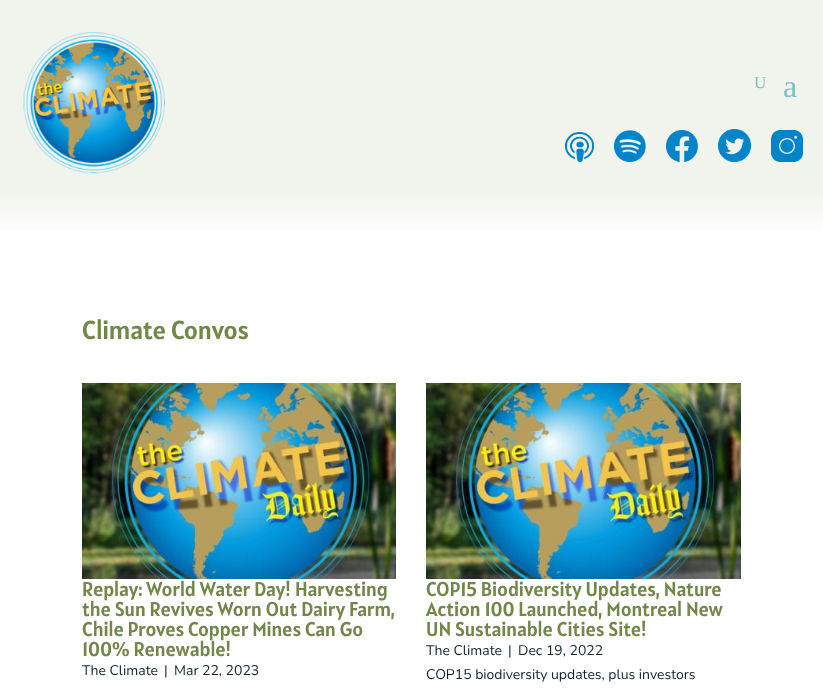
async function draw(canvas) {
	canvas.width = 823;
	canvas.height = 689;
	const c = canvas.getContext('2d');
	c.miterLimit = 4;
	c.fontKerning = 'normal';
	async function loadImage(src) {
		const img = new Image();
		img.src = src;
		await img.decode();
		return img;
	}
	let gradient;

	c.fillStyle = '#fff';
	c.fillRect(0, 0, 823, 689);
	gradient = c.createLinearGradient(412, 0, 412, 237);
	gradient.addColorStop(0.8, '#f1f4ed');
	gradient.addColorStop(1, '#fff');
	c.fillStyle = gradient;
	c.fillRect(0, 0, 823, 230);
	c.drawImage(await loadImage('img1.png'), 23, 32, 142, 142);
	c.font = '17px Liberation Serif';
	c.fillStyle = '#7ebec5';
	c.fillText('U', 754, 88);
	c.font = '32px Liberation Serif';
	c.fillText('a', 783, 97);
	c.drawImage(await loadImage('img2.png'), 565, 132, 29, 30);
	c.drawImage(await loadImage('img3.png'), 614, 130, 32, 32);
	c.drawImage(await loadImage('img4.png'), 666, 130, 32, 32);
	c.drawImage(await loadImage('img5.png'), 718, 129, 33, 33);
	c.drawImage(await loadImage('img6.png'), 771, 130, 32, 32);
	c.font = '26px Alatsi';
	c.fillStyle = '#72874a';
	c.fillText('Climate Convos', 82, 339);
	c.drawImage(await loadImage('img7.png'), 82, 383, 314, 196);
	c.font = '20px Alatsi';
	for (const [text, x, y] of [
		['Replay: World Water Day! Harvesting', 82, 596],
		['the Sun Revives Worn Out Dairy Farm,', 82, 616],
		['Chile Proves Copper Mines Can Go', 82, 636],
		['100% Renewable!', 82, 656],
	]) {
		c.fillText(text, x, y);
	}
	c.font = '14px Nunito Sans';
	c.fillStyle = '#12252d';
	for (const [text, x, y] of [
		['The Climate', 82, 675],
		['|', 164, 675],
		['Mar 22, 2023', 174, 675],
	]) {
		c.fillText(text, x, y);
	}
	c.drawImage(await loadImage('img8.png'), 426, 383, 315, 196);
	c.font = '20px Alatsi';
	c.fillStyle = '#72874a';
	for (const [text, x, y] of [
		['COP15 Biodiversity Updates, Nature', 426, 596],
		['Action 100 Launched, Montreal New', 426, 616],
		['UN Sustainable Cities Site!', 426, 636],
	]) {
		c.fillText(text, x, y);
	}
	c.font = '14px Nunito Sans';
	c.fillStyle = '#12252d';
	for (const [text, x, y] of [
		['The Climate', 426, 655],
		['|', 508, 655],
		['Dec 19, 2022', 518, 655],
		['COP15 biodiversity updates, plus investors', 426, 679],
	]) {
		c.fillText(text, x, y);
	}
}

draw(document.querySelector('canvas'));
